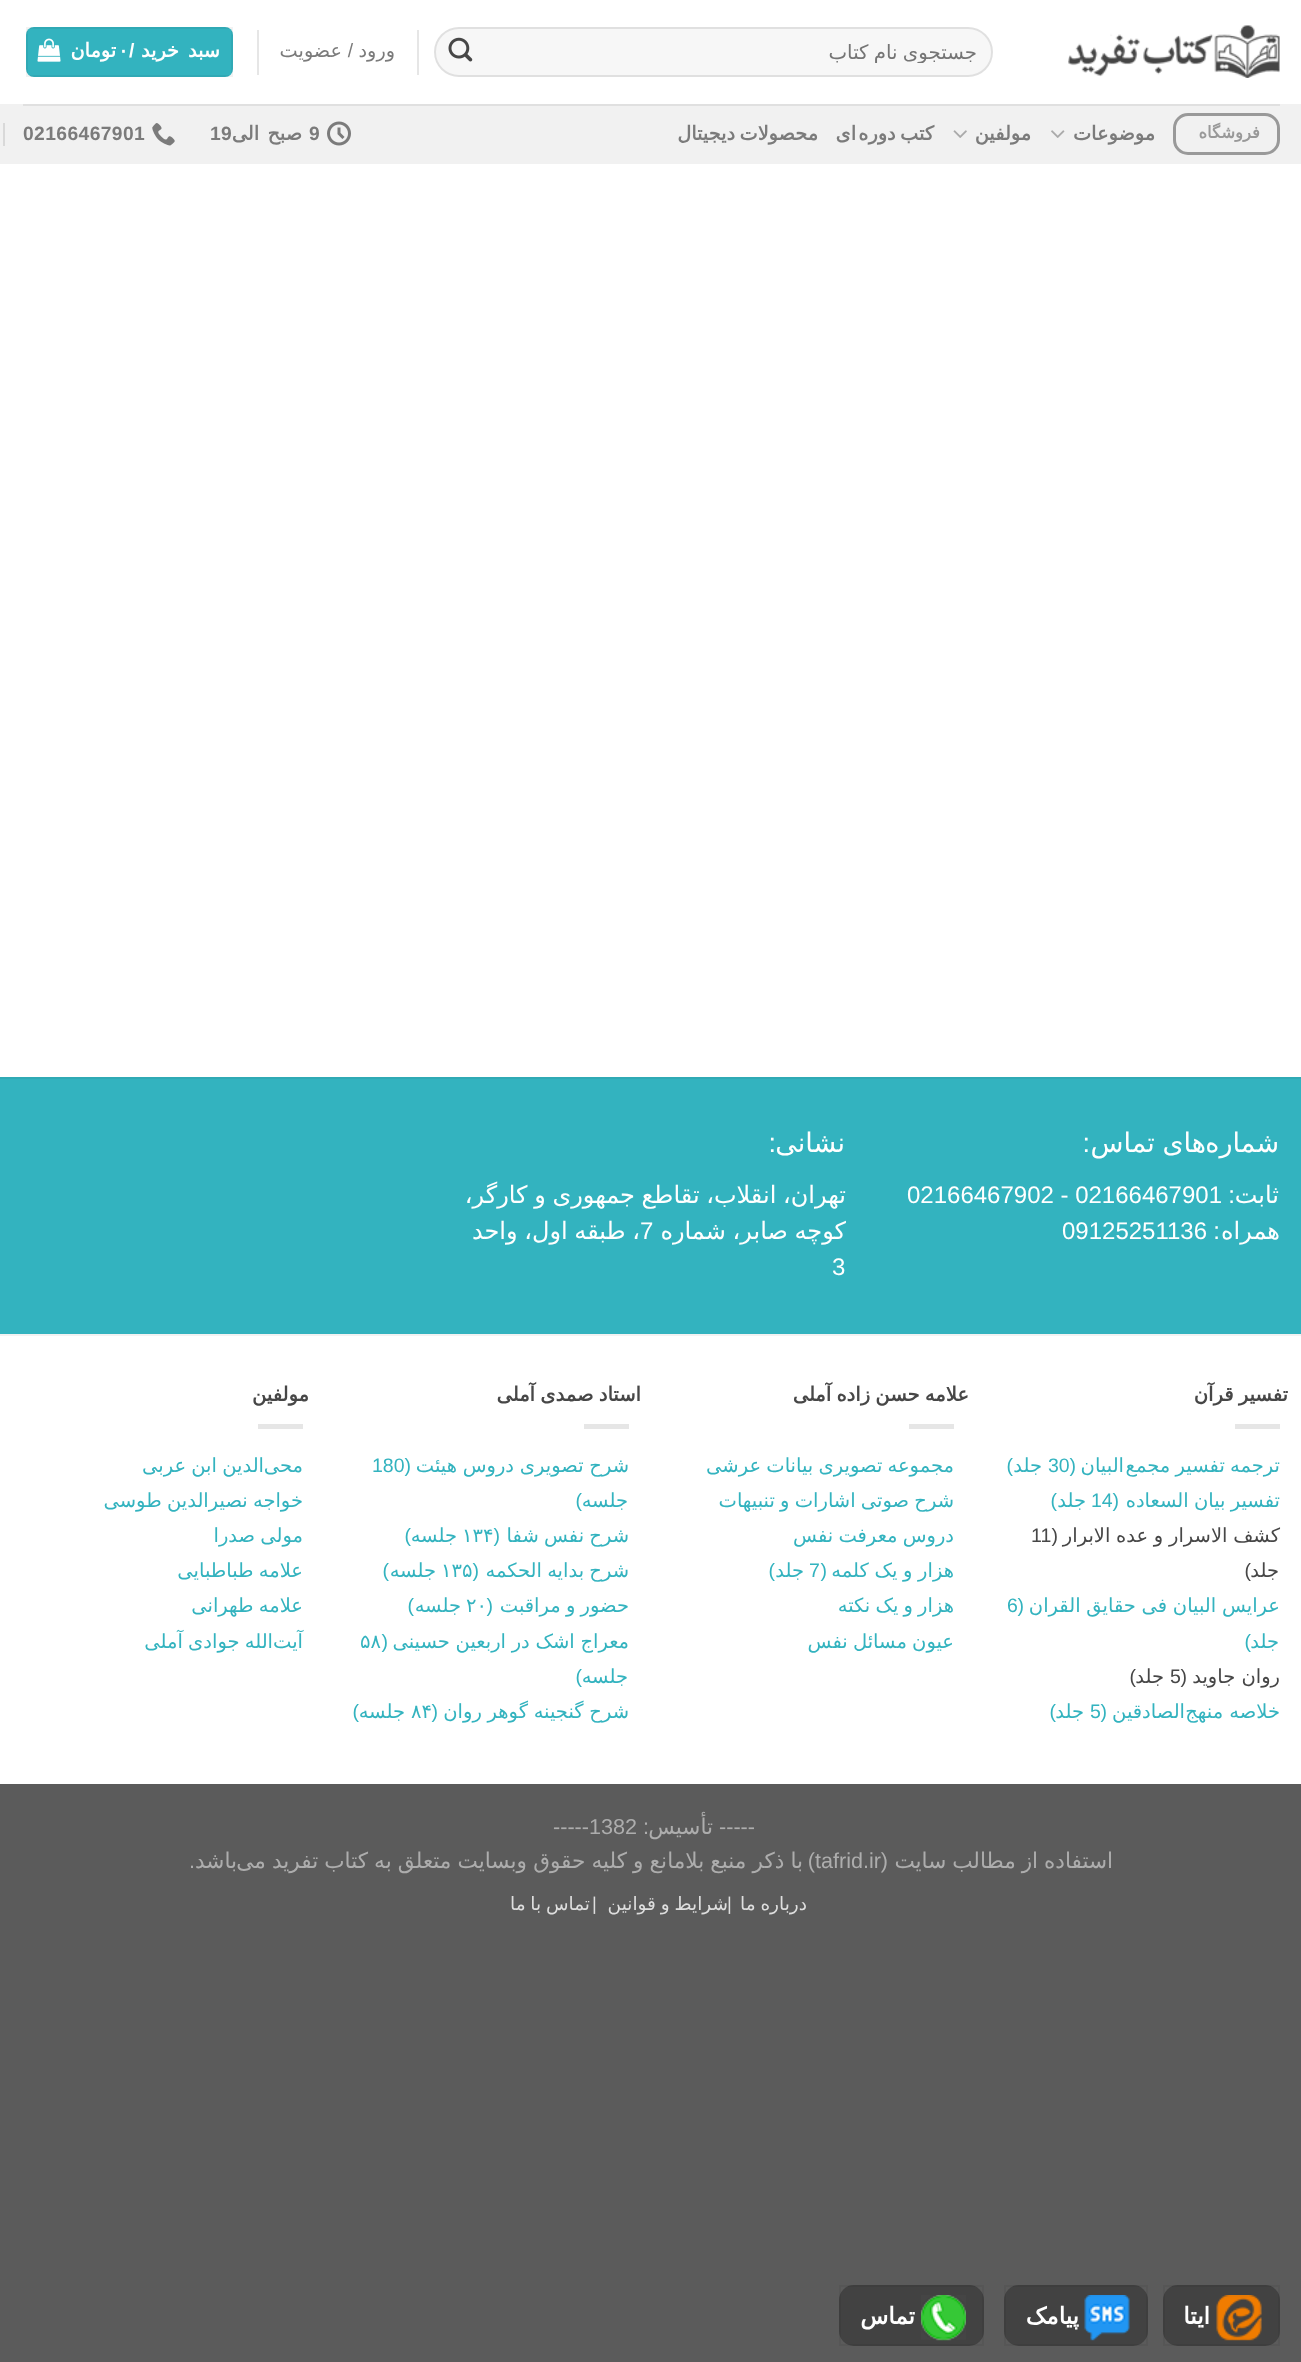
async function draw(canvas) {
	canvas.width = 1301;
	canvas.height = 2362;
	const c = canvas.getContext('2d');
	c.miterLimit = 4;
	c.fontKerning = 'normal';
	async function loadImage(src) {
		const img = new Image();
		img.src = src;
		await img.decode();
		return img;
	}

	c.fillStyle = '#5b5b5b';
	c.fillRect(0, 0, 1301, 2362);
	c.fillStyle = '#fff';
	c.fillRect(0, 0, 1301, 1784);
	c.drawImage(await loadImage('img1.png'), 1068, 25, 212, 53);
	c.fillStyle = '#f7f7f7';
	c.beginPath();
	c.roundRect(434, 27, 559, 50, 25);
	c.fill();
	c.beginPath();
	c.roundRect(435, 28, 557, 48, 24);
	c.strokeStyle = '#00000017';
	c.lineWidth = 2;
	c.stroke();
	c.save();
	c.beginPath();
	c.rect(456, 41, 521, 22);
	c.clip();
	c.wordSpacing = '-1px';
	c.direction = 'rtl';
	c.font = '19.75px DejaVu Sans';
	c.fillStyle = '#757575';
	c.fillText('جستجوی نام کتاب', 977, 59);
	c.restore();
	c.drawImage(await loadImage('img2.png'), 448, 37, 25, 25);
	c.fillStyle = '#e6e6e6';
	c.fillRect(417, 30, 2, 45);
	c.direction = 'rtl';
	c.font = '19.25px DejaVu Sans';
	c.fillStyle = '#7b7b7b';
	c.fillText('ورود', 395, 57);
	c.font = '19.25px Liberation Sans';
	c.fillText('/', 353, 57);
	c.font = '19.25px DejaVu Sans';
	c.fillText('عضویت', 342, 57);
	c.fillStyle = '#e6e6e6';
	c.fillRect(257, 30, 2, 45);
	c.fillStyle = '#33b3bf';
	c.beginPath();
	c.roundRect(26, 27, 207, 50, 8);
	c.fill();
	c.strokeStyle = '#0000000d';
	c.strokeRect(27, 28, 205, 48);
	c.letterSpacing = '0.5px';
	c.font = 'bold 19.25px DejaVu Sans';
	c.fillStyle = '#fff';
	c.fillText('سبد', 220, 57);
	c.fillText('خرید', 179, 57);
	c.direction = 'ltr';
	c.font = 'bold 19.25px Liberation Sans';
	c.fillText('/', 129, 57);
	c.font = 'bold 19.25px DejaVu Sans';
	c.fillText('۰', 118, 57);
	c.direction = 'rtl';
	c.fillText('تومان', 116, 57);
	c.drawImage(await loadImage('img3.png'), 37, 38, 24, 24);
	c.fillStyle = '#f1f1f1';
	c.fillRect(0, 104, 1301, 60);
	c.fillStyle = '#e0e0e0';
	c.fillRect(23, 104, 1257, 2);
	c.beginPath();
	c.roundRect(1174.5, 114.5, 104, 39, 13.5);
	c.strokeStyle = '#999';
	c.lineWidth = 3;
	c.stroke();
	c.font = 'bold 16.5px DejaVu Sans';
	c.fillStyle = '#999';
	c.fillText('فروشگاه', 1260, 138);
	c.letterSpacing = '0.4px';
	c.font = 'bold 19.25px DejaVu Sans';
	c.fillStyle = '#7b7b7b';
	c.fillText('موضوعات', 1155, 140);
	c.drawImage(await loadImage('img4.png'), 1051, 130, 14, 8);
	c.fillText('مولفین', 1031, 140);
	c.drawImage(await loadImage('img5.png'), 953, 130, 14, 8);
	c.wordSpacing = '-2px';
	c.fillText('کتب دوره', 934, 140);
	c.wordSpacing = '0px';
	c.fillText('ای', 856, 140);
	c.wordSpacing = '-2px';
	c.fillText('محصولات دیجیتال', 818, 140);
	c.drawImage(await loadImage('img6.png'), 327, 121, 24, 25);
	c.wordSpacing = '0px';
	c.direction = 'ltr';
	c.font = 'bold 19.25px Liberation Sans';
	c.fillText('9', 309, 140);
	c.direction = 'rtl';
	c.font = 'bold 19.25px DejaVu Sans';
	c.fillText('صبح', 302, 140);
	c.fillText('الی', 259, 140);
	c.direction = 'ltr';
	c.font = 'bold 19.25px Liberation Sans';
	c.fillText('19', 210, 140);
	c.drawImage(await loadImage('img7.png'), 152, 123, 23, 23);
	c.fillText('02166467901', 23, 140);
	for (const [x, y, w, h, color] of [
		[3, 123, 2, 23, '#d9d9d9'],
		[0, 1079, 1301, 255, '#33b3bf'],
		[0, 1077, 1301, 2, '#30aab5'],
	]) {
		c.fillStyle = color;
		c.fillRect(x, y, w, h);
	}
	c.letterSpacing = '0px';
	c.direction = 'rtl';
	c.font = '27px DejaVu Sans';
	c.fillStyle = '#fff';
	c.fillText('شماره', 1279, 1152);
	c.wordSpacing = '-1px';
	c.fillText('های تماس', 1206, 1152);
	c.wordSpacing = '0px';
	c.font = '27px Liberation Sans';
	c.fillText(':', 1090, 1152);
	c.font = '24px DejaVu Sans';
	c.fillText('ثابت', 1279, 1203);
	c.font = '24px Liberation Sans';
	c.fillText(':', 1235, 1203);
	c.direction = 'ltr';
	c.fillText('02166467902 - 02166467901', 907, 1203);
	c.direction = 'rtl';
	c.font = '24px DejaVu Sans';
	c.fillText('همراه', 1280, 1239);
	c.font = '24px Liberation Sans';
	c.fillText(':', 1220, 1239);
	c.direction = 'ltr';
	c.fillText('09125251136', 1062, 1239);
	c.direction = 'rtl';
	c.font = '27px DejaVu Sans';
	c.fillText('نشانی', 845, 1152);
	c.font = '27px Liberation Sans';
	c.fillText(':', 776, 1152);
	c.wordSpacing = '-1px';
	c.font = '24px DejaVu Sans';
	c.fillText('تهران، انقلاب، تقاطع جمهوری و کارگر،', 846, 1203);
	c.fillText('کوچه صابر، شماره', 846, 1239);
	c.wordSpacing = '0px';
	c.direction = 'ltr';
	c.font = '24px Liberation Sans';
	c.fillText('7', 640, 1239);
	c.wordSpacing = '-1px';
	c.direction = 'rtl';
	c.font = '24px DejaVu Sans';
	c.fillText('، طبقه اول، واحد', 640, 1239);
	c.wordSpacing = '0px';
	c.direction = 'ltr';
	c.font = '24px Liberation Sans';
	c.fillText('3', 832, 1275);
	c.fillStyle = '#f2f2f2';
	c.fillRect(0, 1334, 1301, 2);
	c.letterSpacing = '1px';
	c.wordSpacing = '-2px';
	c.direction = 'rtl';
	c.font = 'bold 19.5px DejaVu Sans';
	c.fillStyle = '#474747';
	c.fillText('تفسیر قرآن', 1288, 1401);
	c.fillStyle = '#e6e6e6';
	c.fillRect(1235, 1424, 45, 5);
	c.letterSpacing = '0px';
	c.wordSpacing = '-1px';
	c.font = '19.5px DejaVu Sans';
	c.fillStyle = '#33b3bf';
	c.fillText('ترجمه تفسیر مجمع', 1280, 1472);
	c.wordSpacing = '0px';
	c.fillText('البیان', 1124, 1472);
	c.font = '19.5px Liberation Sans';
	c.fillText('(', 1076, 1472);
	c.direction = 'ltr';
	c.fillText('30', 1048, 1472);
	c.direction = 'rtl';
	c.font = '19.5px DejaVu Sans';
	c.fillText('جلد', 1042, 1472);
	c.font = '19.5px Liberation Sans';
	c.fillText(')', 1013, 1472);
	c.wordSpacing = '-1px';
	c.font = '19.5px DejaVu Sans';
	c.fillText('تفسیر بیان السعاده', 1280, 1507);
	c.wordSpacing = '0px';
	c.font = '19.5px Liberation Sans';
	c.fillText('(', 1119, 1507);
	c.direction = 'ltr';
	c.fillText('14', 1091, 1507);
	c.direction = 'rtl';
	c.font = '19.5px DejaVu Sans';
	c.fillText('جلد', 1086, 1507);
	c.font = '19.5px Liberation Sans';
	c.fillText(')', 1057, 1507);
	c.wordSpacing = '-0.5px';
	c.font = '19.5px DejaVu Sans';
	c.fillStyle = '#474747';
	c.fillText('کشف الاسرار و عده الابرار', 1280, 1542);
	c.wordSpacing = '0px';
	c.font = '19.5px Liberation Sans';
	c.fillText('(', 1058, 1542);
	c.direction = 'ltr';
	c.fillText('11', 1031, 1542);
	c.direction = 'rtl';
	c.font = '19.5px DejaVu Sans';
	c.fillText('جلد', 1279, 1577);
	c.font = '19.5px Liberation Sans';
	c.fillText(')', 1251, 1577);
	c.wordSpacing = '-0.5px';
	c.font = '19.5px DejaVu Sans';
	c.fillStyle = '#33b3bf';
	c.fillText('عرایس البیان فی حقایق القران', 1280, 1612);
	c.wordSpacing = '0px';
	c.font = '19.5px Liberation Sans';
	c.fillText('(', 1024, 1612);
	c.direction = 'ltr';
	c.fillText('6', 1007, 1612);
	c.direction = 'rtl';
	c.font = '19.5px DejaVu Sans';
	c.fillText('جلد', 1279, 1648);
	c.font = '19.5px Liberation Sans';
	c.fillText(')', 1251, 1648);
	c.font = '19.5px DejaVu Sans';
	c.fillStyle = '#474747';
	c.fillText('روان جاوید', 1280, 1683);
	c.font = '19.5px Liberation Sans';
	c.fillText('(', 1187, 1683);
	c.direction = 'ltr';
	c.fillText('5', 1170, 1683);
	c.direction = 'rtl';
	c.font = '19.5px DejaVu Sans';
	c.fillText('جلد', 1164, 1683);
	c.font = '19.5px Liberation Sans';
	c.fillText(')', 1136, 1683);
	c.font = '19.5px DejaVu Sans';
	c.fillStyle = '#33b3bf';
	c.fillText('خلاصه منهج', 1280, 1718);
	c.fillText('الصادقین', 1185, 1718);
	c.font = '19.5px Liberation Sans';
	c.fillText('(', 1107, 1718);
	c.direction = 'ltr';
	c.fillText('5', 1090, 1718);
	c.direction = 'rtl';
	c.font = '19.5px DejaVu Sans';
	c.fillText('جلد', 1084, 1718);
	c.font = '19.5px Liberation Sans';
	c.fillText(')', 1056, 1718);
	c.letterSpacing = '1px';
	c.wordSpacing = '-2px';
	c.font = 'bold 19.5px DejaVu Sans';
	c.fillStyle = '#474747';
	c.fillText('علامه حسن زاده آملی', 969, 1401);
	c.fillStyle = '#e6e6e6';
	c.fillRect(909, 1424, 45, 5);
	c.letterSpacing = '0px';
	c.wordSpacing = '-1px';
	c.font = '19.5px DejaVu Sans';
	c.fillStyle = '#33b3bf';
	for (const [text, x, y] of [
		['مجموعه تصویری بیانات عرشی', 954, 1472],
		['شرح صوتی اشارات و تنبیهات', 954, 1507],
		['دروس معرفت نفس', 954, 1542],
	]) {
		c.fillText(text, x, y);
	}
	c.wordSpacing = '-0.5px';
	c.fillText('هزار و یک کلمه', 954, 1577);
	c.wordSpacing = '0px';
	c.font = '19.5px Liberation Sans';
	c.fillText('(', 827, 1577);
	c.direction = 'ltr';
	c.fillText('7', 809, 1577);
	c.direction = 'rtl';
	c.font = '19.5px DejaVu Sans';
	c.fillText('جلد', 804, 1577);
	c.font = '19.5px Liberation Sans';
	c.fillText(')', 775, 1577);
	c.wordSpacing = '-1px';
	c.font = '19.5px DejaVu Sans';
	c.fillText('هزار و یک نکته', 954, 1612);
	c.fillText('عیون مسائل نفس', 954, 1648);
	c.letterSpacing = '1px';
	c.wordSpacing = '-2px';
	c.font = 'bold 19.5px DejaVu Sans';
	c.fillStyle = '#474747';
	c.fillText('استاد صمدی آملی', 641, 1401);
	c.fillStyle = '#e6e6e6';
	c.fillRect(584, 1424, 45, 5);
	c.letterSpacing = '0px';
	c.wordSpacing = '-0.5px';
	c.font = '19.5px DejaVu Sans';
	c.fillStyle = '#33b3bf';
	c.fillText('شرح تصویری دروس هیئت', 629, 1472);
	c.wordSpacing = '0px';
	c.font = '19.5px Liberation Sans';
	c.fillText('(', 411, 1472);
	c.direction = 'ltr';
	c.fillText('180', 372, 1472);
	c.direction = 'rtl';
	c.font = '19.5px DejaVu Sans';
	c.fillText('جلسه', 628, 1507);
	c.font = '19.5px Liberation Sans';
	c.fillText(')', 582, 1507);
	c.wordSpacing = '-1px';
	c.font = '19.5px DejaVu Sans';
	c.fillText('شرح نفس شفا', 629, 1542);
	c.wordSpacing = '0px';
	c.font = '19.5px Liberation Sans';
	c.fillText('(', 500, 1542);
	c.direction = 'ltr';
	c.font = '19.5px DejaVu Sans';
	c.fillText('۱۳۴', 462, 1542);
	c.direction = 'rtl';
	c.fillText('جلسه', 457, 1542);
	c.font = '19.5px Liberation Sans';
	c.fillText(')', 411, 1542);
	c.wordSpacing = '-1px';
	c.font = '19.5px DejaVu Sans';
	c.fillText('شرح بدایه الحکمه', 629, 1577);
	c.wordSpacing = '0px';
	c.font = '19.5px Liberation Sans';
	c.fillText('(', 479, 1577);
	c.direction = 'ltr';
	c.font = '19.5px DejaVu Sans';
	c.fillText('۱۳۵', 441, 1577);
	c.direction = 'rtl';
	c.fillText('جلسه', 436, 1577);
	c.font = '19.5px Liberation Sans';
	c.fillText(')', 389, 1577);
	c.wordSpacing = '-1px';
	c.font = '19.5px DejaVu Sans';
	c.fillText('حضور و مراقبت', 629, 1612);
	c.wordSpacing = '0px';
	c.font = '19.5px Liberation Sans';
	c.fillText('(', 493, 1612);
	c.direction = 'ltr';
	c.font = '19.5px DejaVu Sans';
	c.fillText('۲۰', 466, 1612);
	c.direction = 'rtl';
	c.fillText('جلسه', 461, 1612);
	c.font = '19.5px Liberation Sans';
	c.fillText(')', 414, 1612);
	c.wordSpacing = '-0.5px';
	c.font = '19.5px DejaVu Sans';
	c.fillText('معراج اشک در اربعین حسینی', 629, 1648);
	c.wordSpacing = '0px';
	c.font = '19.5px Liberation Sans';
	c.fillText('(', 388, 1648);
	c.direction = 'ltr';
	c.font = '19.5px DejaVu Sans';
	c.fillText('۵۸', 360, 1648);
	c.direction = 'rtl';
	c.fillText('جلسه', 628, 1683);
	c.font = '19.5px Liberation Sans';
	c.fillText(')', 582, 1683);
	c.wordSpacing = '-0.5px';
	c.font = '19.5px DejaVu Sans';
	c.fillText('شرح گنجینه گوهر روان', 629, 1718);
	c.wordSpacing = '0px';
	c.font = '19.5px Liberation Sans';
	c.fillText('(', 438, 1718);
	c.direction = 'ltr';
	c.font = '19.5px DejaVu Sans';
	c.fillText('۸۴', 411, 1718);
	c.direction = 'rtl';
	c.fillText('جلسه', 405, 1718);
	c.font = '19.5px Liberation Sans';
	c.fillText(')', 359, 1718);
	c.letterSpacing = '1px';
	c.font = 'bold 19.5px DejaVu Sans';
	c.fillStyle = '#474747';
	c.fillText('مولفین', 309, 1401);
	c.fillStyle = '#e6e6e6';
	c.fillRect(258, 1424, 45, 5);
	c.letterSpacing = '0px';
	c.font = '19.5px DejaVu Sans';
	c.fillStyle = '#33b3bf';
	c.fillText('محی', 303, 1472);
	c.wordSpacing = '-1px';
	for (const [text, x, y] of [
		['الدین ابن عربی', 264, 1472],
		['خواجه نصیرالدین طوسی', 303, 1507],
		['مولی صدرا', 303, 1542],
		['علامه طباطبایی', 303, 1577],
		['علامه طهرانی', 303, 1612],
	]) {
		c.fillText(text, x, y);
	}
	c.wordSpacing = '0px';
	c.fillText('آیت', 303, 1648);
	c.wordSpacing = '-1px';
	c.fillText('الله جوادی آملی', 273, 1648);
	c.wordSpacing = '0px';
	c.font = '21.6px Liberation Sans';
	c.fillStyle = '#adadad';
	c.fillText('-----', 755, 1834);
	c.font = '21.6px DejaVu Sans';
	c.fillText('تأسیس', 713, 1834);
	c.font = '21.6px Liberation Sans';
	c.fillText(':', 649, 1834);
	c.direction = 'ltr';
	c.fillText('-----1382', 553, 1834);
	c.wordSpacing = '-1px';
	c.direction = 'rtl';
	c.font = '21.6px DejaVu Sans';
	c.fillText('استفاده از مطالب سایت', 1113, 1868);
	c.wordSpacing = '0px';
	c.font = '21.6px Liberation Sans';
	c.fillText('(', 888, 1868);
	c.direction = 'ltr';
	c.fillText('tafrid.ir', 815, 1868);
	c.direction = 'rtl';
	c.fillText(')', 815, 1868);
	c.wordSpacing = '-0.75px';
	c.font = '21.6px DejaVu Sans';
	c.fillText('با ذکر منبع بلامانع و کلیه حقوق وبسایت متعلق به کتاب تفرید می', 803, 1868);
	c.wordSpacing = '0px';
	c.fillText('باشد', 237, 1868);
	c.font = '21.6px Liberation Sans';
	c.fillText('.', 195, 1868);
	c.letterSpacing = '0.9px';
	c.wordSpacing = '-2px';
	c.font = '18.5px DejaVu Sans';
	c.fillStyle = '#dedede';
	c.fillText('درباره ما', 807, 1910);
	c.wordSpacing = '0px';
	c.direction = 'ltr';
	c.font = '18.5px Liberation Sans';
	c.fillText('|', 727, 1910);
	c.wordSpacing = '-2px';
	c.direction = 'rtl';
	c.font = '18.5px DejaVu Sans';
	c.fillText('شرایط و قوانین', 728, 1910);
	c.wordSpacing = '0px';
	c.direction = 'ltr';
	c.font = '18.5px Liberation Sans';
	c.fillText('|', 592, 1910);
	c.wordSpacing = '-2px';
	c.direction = 'rtl';
	c.font = '18.5px DejaVu Sans';
	c.fillText('تماس با ما', 590, 1910);
	c.fillStyle = '#424242';
	c.beginPath();
	c.roundRect(1163, 2285, 117, 61, 15);
	c.fill();
	c.strokeStyle = '#0000000d';
	c.lineWidth = 2;
	c.strokeRect(1164, 2286, 115, 59);
	c.drawImage(await loadImage('img8.png'), 1216, 2295, 46, 46);
	c.letterSpacing = '0.5px';
	c.wordSpacing = '0px';
	c.font = 'bold 23px DejaVu Sans';
	c.fillStyle = '#fff';
	c.fillText('ایتا', 1210, 2324);
	c.fillStyle = '#424242';
	c.beginPath();
	c.roundRect(1004, 2285, 144, 61, 15);
	c.fill();
	c.strokeRect(1005, 2286, 142, 59);
	c.drawImage(await loadImage('img9.png'), 1084, 2295, 46, 46);
	c.fillStyle = '#fff';
	c.fillText('پیامک', 1079, 2324);
	c.fillStyle = '#424242';
	c.beginPath();
	c.roundRect(839, 2285, 145, 61, 15);
	c.fill();
	c.strokeRect(840, 2286, 143, 59);
	c.drawImage(await loadImage('img10.png'), 921, 2295, 45, 46);
	c.fillStyle = '#fff';
	c.fillText('تماس', 915, 2324);
}

draw(document.querySelector('canvas'));
